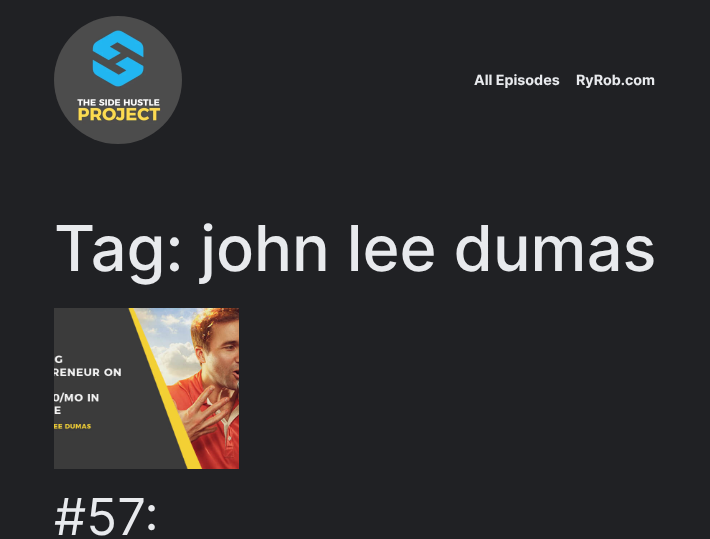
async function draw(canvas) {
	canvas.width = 710;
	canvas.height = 539;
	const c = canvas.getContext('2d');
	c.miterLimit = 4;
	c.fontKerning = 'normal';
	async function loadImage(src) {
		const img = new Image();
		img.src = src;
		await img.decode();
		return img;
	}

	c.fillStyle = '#202124';
	c.fillRect(0, 0, 710, 539);
	c.drawImage(await loadImage('img1.png'), 54, 16, 128, 128);
	c.font = 'bold 14.25px Inter';
	c.fillStyle = '#e8eaed';
	c.fillText('All Episodes', 474, 85);
	c.fillText('RyRob.com', 576, 85);
	c.font = '500 63.25px Inter';
	c.fillText('Tag: john lee dumas', 54, 271);
	c.drawImage(await loadImage('img2.png'), 54, 308, 185, 161);
	c.font = '51px Inter';
	c.fillText('#57:', 54, 535);
}

draw(document.querySelector('canvas'));
